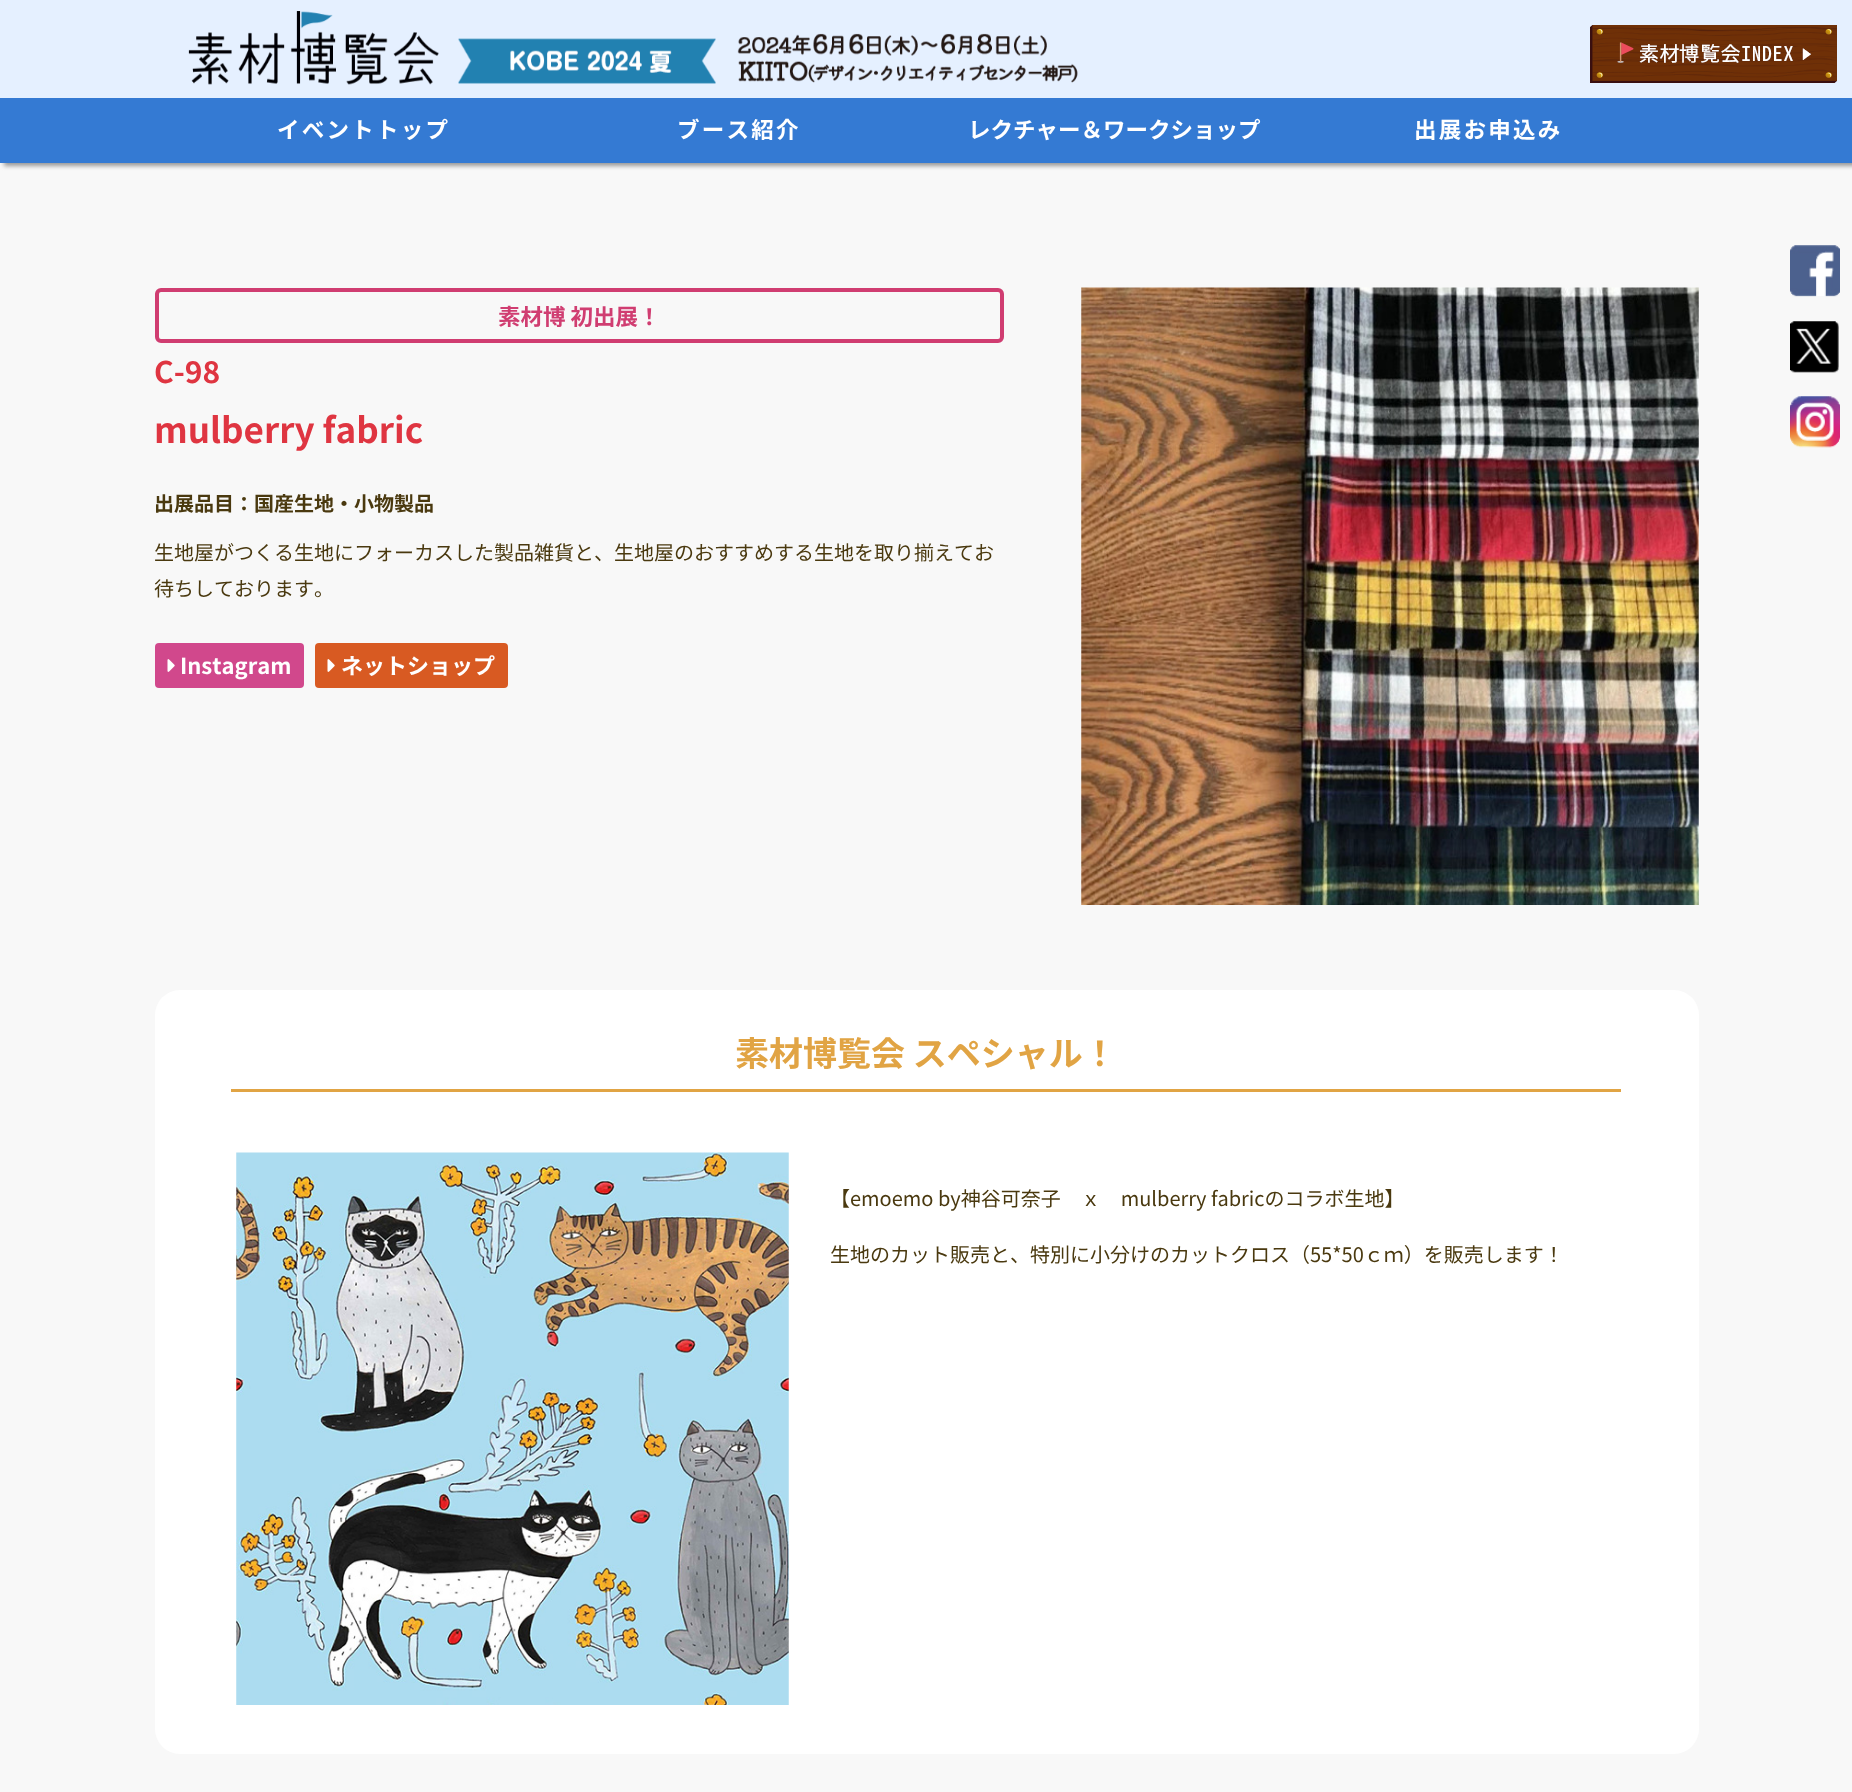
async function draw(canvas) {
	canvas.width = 1852;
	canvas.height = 1792;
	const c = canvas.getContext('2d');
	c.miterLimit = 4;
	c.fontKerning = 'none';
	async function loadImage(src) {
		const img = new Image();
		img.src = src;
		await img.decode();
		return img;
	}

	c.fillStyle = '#f8f8f8';
	c.fillRect(0, 0, 1852, 1792);
	c.fillStyle = '#999';
	c.filter = 'blur(2px)';
	c.beginPath();
	c.rect(4, 4, 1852, 162);
	c.fill();
	c.filter = 'none';
	c.fillStyle = '#347ad3';
	c.fillRect(0, 98, 1852, 65);
	c.fillStyle = '#e5f0ff';
	c.fillRect(0, 0, 1852, 98);
	c.drawImage(await loadImage('img1.png'), 188, 11, 890, 74);
	c.letterSpacing = '2.25px';
	c.font = 'bold 22.5px Noto Sans JP';
	c.fillStyle = '#fff';
	c.fillText('イベントトップ', 277, 138);
	c.fillText('ブース紹介', 677, 138);
	c.letterSpacing = '0px';
	c.fillText('レクチャー＆ワークショップ', 968, 138);
	c.letterSpacing = '2.25px';
	c.fillText('出展お申込み', 1414, 138);
	c.drawImage(await loadImage('img2.png'), 1590, 25, 247, 58);
	c.drawImage(await loadImage('img3.png'), 1790, 245, 50, 52);
	c.drawImage(await loadImage('img4.png'), 1790, 321, 49, 52);
	c.drawImage(await loadImage('img5.png'), 1790, 396, 50, 52);
	c.beginPath();
	c.roundRect(157, 290, 845, 51, 4);
	c.strokeStyle = '#d03d71';
	c.lineWidth = 4;
	c.stroke();
	c.letterSpacing = '0px';
	c.fillStyle = '#d03d71';
	c.fillText('素材博 初出展！', 498, 325);
	c.font = 'bold 30px Noto Sans JP';
	c.fillStyle = '#df3541';
	c.fillText('C-98', 154, 383);
	c.font = 'bold 35px Noto Sans JP';
	c.fillText('mulberry fabric', 154, 443);
	c.font = 'bold 20px Noto Sans JP';
	c.fillStyle = '#4a390f';
	c.fillText('出展品目：国産生地・小物製品', 154, 511);
	c.font = '20px Noto Sans JP';
	c.fillText('生地屋がつくる生地にフォーカスした製品雑貨と、生地屋のおすすめする生地を取り揃えてお', 154, 560);
	c.fillText('待ちしております。', 154, 596);
	c.fillStyle = '#d1488c';
	c.beginPath();
	c.roundRect(155, 643, 149, 45, 4);
	c.fill();
	c.drawImage(await loadImage('img6.png'), 167, 659, 8, 13);
	c.font = 'bold 22px Noto Sans JP';
	c.fillStyle = '#fff';
	c.fillText('Instagram', 180, 674);
	c.fillStyle = '#d85a22';
	c.beginPath();
	c.roundRect(315, 643, 193, 45, 4);
	c.fill();
	c.drawImage(await loadImage('img7.png'), 327, 659, 8, 13);
	c.fillStyle = '#fff';
	c.fillText('ネットショップ', 341, 674);
	c.drawImage(await loadImage('img8.png'), 1081, 287, 618, 618);
	c.beginPath();
	c.roundRect(155, 990, 1544, 764, 25);
	c.fill();
	c.fillStyle = '#e1a444';
	c.fillRect(231, 1089, 1390, 3);
	c.font = 'bold 34px Noto Sans JP';
	c.fillText('素材博覧会 スペシャル！', 735, 1066);
	c.drawImage(await loadImage('img9.png'), 236, 1152, 553, 553);
	c.font = '20px Noto Sans JP';
	c.fillStyle = '#4a390f';
	c.fillText('【emoemo by神谷可奈子　ｘ　mulberry fabricのコラボ生地】', 830, 1206);
	c.fillText('生地のカット販売と、特別に小分けのカットクロス（55*50ｃｍ）を販売します！', 830, 1262);
}

draw(document.querySelector('canvas'));
